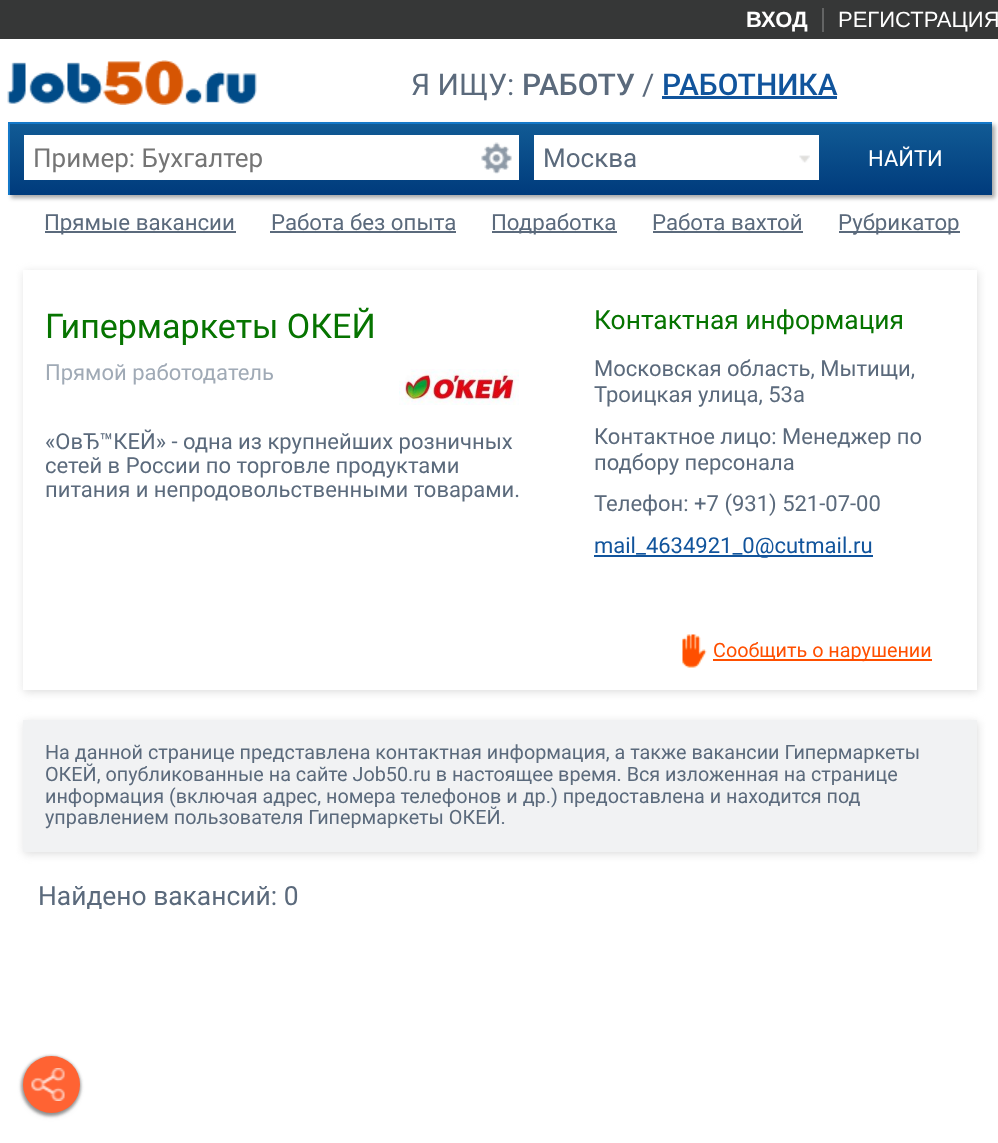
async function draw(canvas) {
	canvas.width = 998;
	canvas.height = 1143;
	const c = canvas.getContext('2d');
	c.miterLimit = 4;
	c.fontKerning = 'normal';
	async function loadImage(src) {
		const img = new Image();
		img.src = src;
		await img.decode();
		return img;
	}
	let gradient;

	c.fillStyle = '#fff';
	c.fillRect(0, 0, 998, 1143);
	c.fillStyle = '#363737';
	c.fillRect(0, 0, 998, 39);
	c.fillStyle = '#636464';
	c.fillRect(822, 8, 2, 24);
	c.font = 'bold 22px Liberation Sans';
	c.fillStyle = '#fff';
	c.fillText('ВХОД', 746, 27);
	c.font = '22px Liberation Sans';
	c.fillText('РЕГИСТРАЦИЯ', 838, 27);
	c.drawImage(await loadImage('img1.png'), 7, 60, 250, 45);
	c.font = '30px Roboto';
	c.fillStyle = '#5b6a7c';
	c.fillText('Я ИЩУ:', 411, 95);
	c.font = '500 30px Roboto';
	c.fillText('РАБОТУ', 522, 95);
	c.font = '30px Roboto';
	c.fillText('/', 642, 95);
	c.font = '500 30px Roboto';
	c.fillStyle = '#11549c';
	c.fillText('РАБОТНИКА', 662, 95);
	c.fillRect(662, 96, 175, 3);
	c.fillStyle = '#00000059';
	c.filter = 'blur(2px)';
	c.beginPath();
	c.rect(11, 125, 984, 73);
	c.fill();
	c.filter = 'none';
	gradient = c.createLinearGradient(500, 123, 500, 195);
	gradient.addColorStop(0, '#115b95');
	gradient.addColorStop(1, '#003b7c');
	c.fillStyle = gradient;
	c.fillRect(10, 124, 982, 71);
	for (const [x, y, w, h, color] of [
		[8, 122, 984, 2, '#1478c8'],
		[8, 122, 2, 73, '#1478c8'],
		[24, 135, 495, 45, '#fff'],
	]) {
		c.fillStyle = color;
		c.fillRect(x, y, w, h);
	}
	c.font = '26px Roboto';
	c.fillStyle = '#757575';
	c.fillText('Пример: Бухгалтер', 33, 167);
	c.drawImage(await loadImage('img2.png'), 481, 142, 31, 32);
	c.fillStyle = '#fff';
	c.fillRect(534, 135, 285, 45);
	c.fillStyle = '#5b6a7c';
	c.fillText('Москва', 543, 167);
	c.drawImage(await loadImage('img3.png'), 799, 155, 11, 8);
	c.font = '22px Roboto';
	c.fillStyle = '#fff';
	c.fillText('НАЙТИ', 868, 166);
	c.fillStyle = '#5b6a7c';
	c.fillRect(45, 231, 191, 2);
	c.font = '22.25px Roboto';
	c.fillText('Прямые вакансии', 44, 230);
	c.fillText('Работа без опыта', 271, 230);
	c.fillRect(270, 231, 186, 2);
	c.fillRect(492, 231, 125, 2);
	c.fillText('Подработка', 491, 230);
	c.fillText('Работа вахтой', 652, 230);
	c.fillRect(653, 231, 150, 2);
	c.fillRect(839, 231, 121, 2);
	c.fillText('Рубрикатор', 838, 230);
	c.save();
	c.beginPath();
	c.moveTo(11, 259);
	c.lineTo(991, 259);
	c.lineTo(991, 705);
	c.lineTo(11, 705);
	c.closePath();
	c.moveTo(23, 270);
	c.lineTo(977, 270);
	c.lineTo(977, 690);
	c.lineTo(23, 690);
	c.closePath();
	c.clip('evenodd');
	c.fillStyle = '#ddd';
	c.filter = 'blur(4px)';
	c.beginPath();
	c.rect(24, 272, 954, 420);
	c.fill();
	c.filter = 'none';
	c.restore();
	c.font = '34px Roboto';
	c.fillStyle = '#067400';
	c.fillText('Гипермаркеты ОКЕЙ', 45, 338);
	c.font = '26.4px Roboto';
	c.fillText('Контактная информация', 594, 329);
	c.font = '22px Roboto';
	c.fillStyle = '#5b6a7c';
	for (const [text, x, y] of [
		['Московская область, Мытищи,', 594, 376],
		['Троицкая улица, 53а', 594, 402],
		['Контактное лицо: Менеджер по', 594, 444],
		['подбору персонала', 594, 470],
		['Телефон: +7 (931) 521-07-00', 594, 511],
	]) {
		c.fillText(text, x, y);
	}
	c.fillStyle = '#11549c';
	c.fillRect(594, 555, 279, 2);
	c.fillText('mail_4634921_0@cutmail.ru', 594, 553);
	c.fillStyle = '#a0aab6';
	c.fillText('Прямой работодатель', 45, 380);
	c.drawImage(await loadImage('img4.png'), 399, 369, 120, 36);
	c.fillStyle = '#5b6a7c';
	for (const [text, x, y] of [
		['«ОвЂ™КЕЙ» - одна из крупнейших розничных', 45, 449],
		['сетей в России по торговле продуктами', 45, 473],
		['питания и непродовольственными товарами.', 45, 497],
	]) {
		c.fillText(text, x, y);
	}
	c.drawImage(await loadImage('img5.png'), 682, 634, 25, 34);
	c.fillStyle = '#ff4f00';
	c.fillRect(713, 659, 219, 2);
	c.font = '19.8px Roboto';
	c.fillText('Сообщить о нарушении', 713, 657);
	c.fillStyle = '#33333373';
	c.filter = 'blur(4px)';
	c.beginPath();
	c.roundRect(27, 1064, 48, 48, 24);
	c.fill();
	c.filter = 'none';
	c.filter = 'blur(1.5px)';
	c.beginPath();
	c.roundRect(21, 1056, 60, 60, 30);
	c.fill();
	c.filter = 'none';
	c.fillStyle = '#ff6333';
	c.beginPath();
	c.arc(51.5, 1084.5, 28.5, 0, 2 * Math.PI);
	c.fill();
	c.drawImage(await loadImage('img6.png'), 31, 1068, 34, 33);
	c.fillStyle = '#ddd';
	c.filter = 'blur(4px)';
	c.beginPath();
	c.rect(24, 722, 954, 132);
	c.fill();
	c.filter = 'none';
	c.fillStyle = '#f1f2f3';
	c.fillRect(23, 720, 954, 132);
	c.fillStyle = '#5b6a7c';
	for (const [text, x, y] of [
		['На данной странице представлена контактная информация, а также вакансии Гипермаркеты', 45, 759],
		['ОКЕЙ, опубликованные на сайте Job50.ru в настоящее время. Вся изложенная на странице', 45, 781],
		['информация (включая адрес, номера телефонов и др.) предоставлена и находится под', 45, 803],
		['управлением пользователя Гипермаркеты ОКЕЙ.', 45, 824],
	]) {
		c.fillText(text, x, y);
	}
	c.font = '26.4px Roboto';
	c.fillText('Найдено вакансий: 0', 38, 905);
}

draw(document.querySelector('canvas'));
